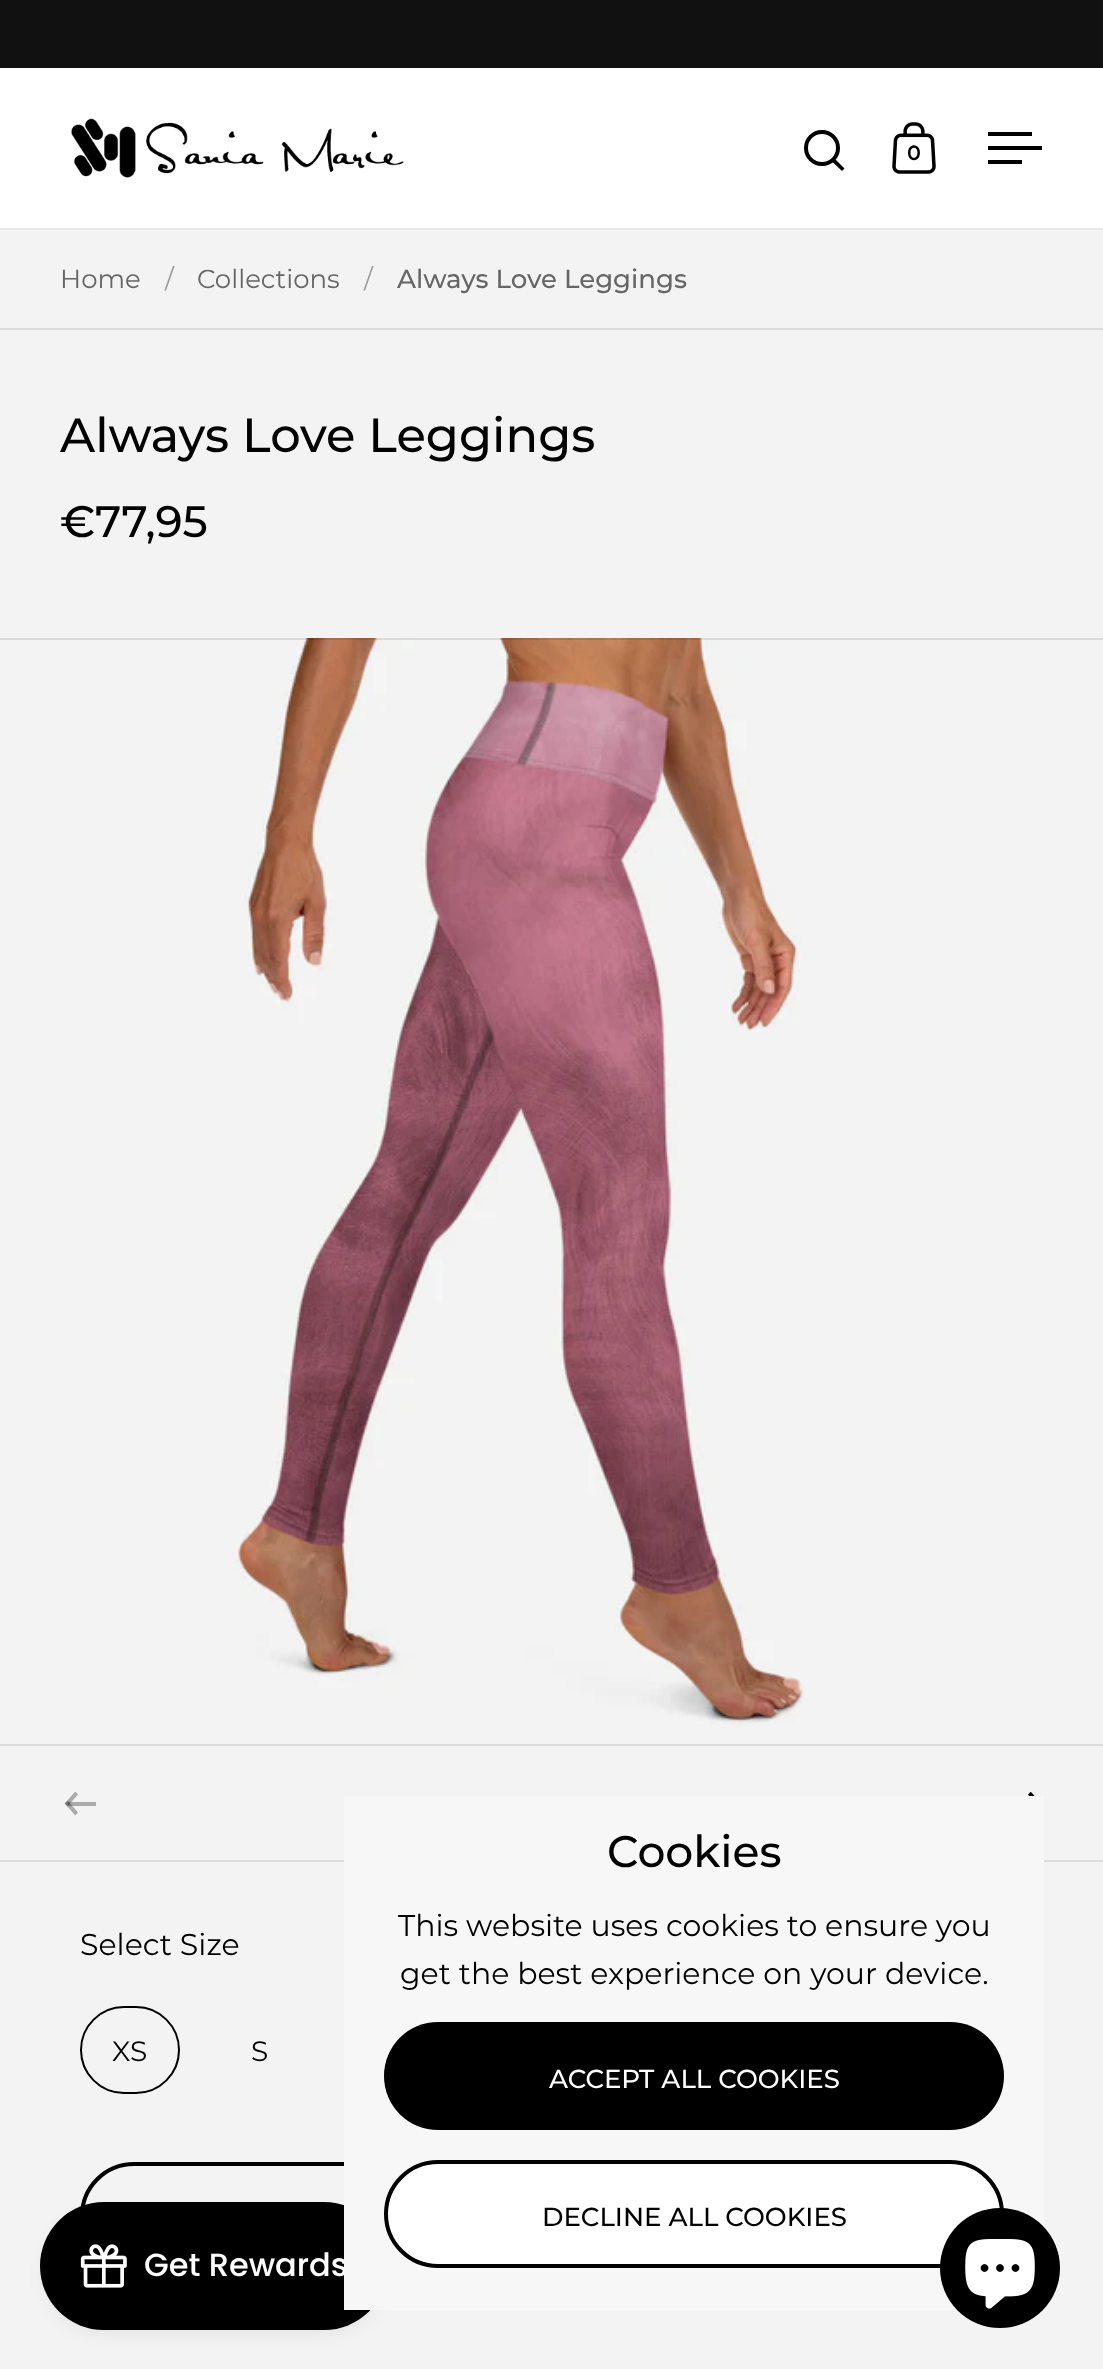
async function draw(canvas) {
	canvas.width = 1103;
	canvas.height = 2369;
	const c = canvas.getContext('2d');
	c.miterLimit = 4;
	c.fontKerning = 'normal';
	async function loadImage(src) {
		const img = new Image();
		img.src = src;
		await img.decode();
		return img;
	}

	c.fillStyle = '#f3f3f3';
	c.fillRect(0, 0, 1103, 2369);
	for (const [x, y, w, h, color] of [
		[0, 0, 1103, 68, '#111'],
		[0, 68, 1103, 160, '#fff'],
		[0, 228, 1103, 2, '#e6e6e6'],
	]) {
		c.fillStyle = color;
		c.fillRect(x, y, w, h);
	}
	c.drawImage(await loadImage('img1.png'), 71, 118, 333, 60);
	c.beginPath();
	c.arc(822, 148, 16, 0, 2 * Math.PI);
	c.strokeStyle = '#000';
	c.lineWidth = 4;
	c.stroke();
	c.fillStyle = '#000';
	c.beginPath();
	c.moveTo(832.5, 162);
	c.lineTo(835, 159);
	c.lineTo(844.5, 168.5);
	c.lineTo(842, 171);
	c.closePath();
	c.fill();
	c.drawImage(await loadImage('img2.png'), 892, 122, 44, 52);
	c.font = 'bold 20px Montserrat';
	c.fillText('0', 907, 160);
	for (const [x, y, w, h, color] of [
		[988, 132, 44, 4, '#000'],
		[988, 146, 54, 4, '#000'],
		[988, 160, 34, 4, '#000'],
		[0, 328, 1103, 2, '#dbdbdb'],
	]) {
		c.fillStyle = color;
		c.fillRect(x, y, w, h);
	}
	c.font = '26px Montserrat';
	c.fillStyle = '#666';
	c.fillText('Home', 60, 288);
	c.fillStyle = '#9c9c9c';
	c.fillText('/', 165, 288);
	c.fillStyle = '#666';
	c.fillText('Collections', 197, 288);
	c.fillStyle = '#9c9c9c';
	c.fillText('/', 364, 288);
	c.font = '500 26px Montserrat';
	c.fillStyle = '#666';
	c.fillText('Always Love Leggings', 397, 288);
	c.font = '500 48px Montserrat';
	c.fillStyle = '#000';
	c.fillText('Always Love Leggings', 60, 452);
	c.font = '500 44px Montserrat';
	c.fillText('€77,95', 60, 537);
	c.fillStyle = '#dbdbdb';
	c.fillRect(0, 1860, 1103, 2);
	c.drawImage(await loadImage('img3.png'), 235, 638, 569, 1089);
	c.fillRect(0, 1744, 1103, 2);
	c.drawImage(await loadImage('img4.png'), 64, 1792, 32, 24);
	c.drawImage(await loadImage('img5.png'), 1028, 1792, 7, 4);
	c.fillStyle = '#0000001a';
	c.fillRect(0, 638, 1103, 2);
	c.font = '30px Montserrat';
	c.fillStyle = '#000';
	c.fillText('Select Size', 80, 1955);
	c.beginPath();
	c.roundRect(81, 2007, 98, 86, 43);
	c.lineWidth = 2;
	c.stroke();
	c.font = '28px Montserrat';
	c.fillText('XS', 112, 2061);
	c.fillText('S', 251, 2061);
	c.beginPath();
	c.roundRect(82, 2164, 942, 104, 52);
	c.lineWidth = 4;
	c.stroke();
	c.fillStyle = '#44444414';
	c.filter = 'blur(8px)';
	c.beginPath();
	c.roundRect(44, 2214, 340, 120, 60);
	c.fill();
	c.filter = 'none';
	c.fillStyle = '#000';
	c.beginPath();
	c.roundRect(40, 2202, 348, 128, 64);
	c.fill();
	c.font = '500 32px Poppins';
	c.fillStyle = '#fff';
	c.fillText('Get Rewards', 144, 2276);
	c.fillStyle = '#f7f7f7';
	c.fillRect(344, 1796, 700, 514);
	c.font = '500 44px Montserrat';
	c.fillStyle = '#000';
	c.fillText('Cookies', 607, 1867);
	c.font = '30px Montserrat';
	c.fillText('This website uses cookies to ensure you', 398, 1936);
	c.fillText('get the best experience on your device.', 400, 1984);
	c.beginPath();
	c.roundRect(384, 2022, 620, 108, 54);
	c.fill();
	c.font = '500 26px Montserrat';
	c.fillStyle = '#fff';
	c.fillText('ACCEPT ALL COOKIES', 549, 2088);
	c.beginPath();
	c.roundRect(386, 2162, 616, 104, 52);
	c.fill();
	c.stroke();
	c.fillStyle = '#000';
	c.fillText('DECLINE ALL COOKIES', 542, 2226);
	c.drawImage(await loadImage('img6.png'), 80, 2244, 47, 44);
	c.beginPath();
	c.arc(1000, 2268, 60, 0, 2 * Math.PI);
	c.fill();
	c.drawImage(await loadImage('img7.png'), 965, 2239, 70, 70);
}

draw(document.querySelector('canvas'));
